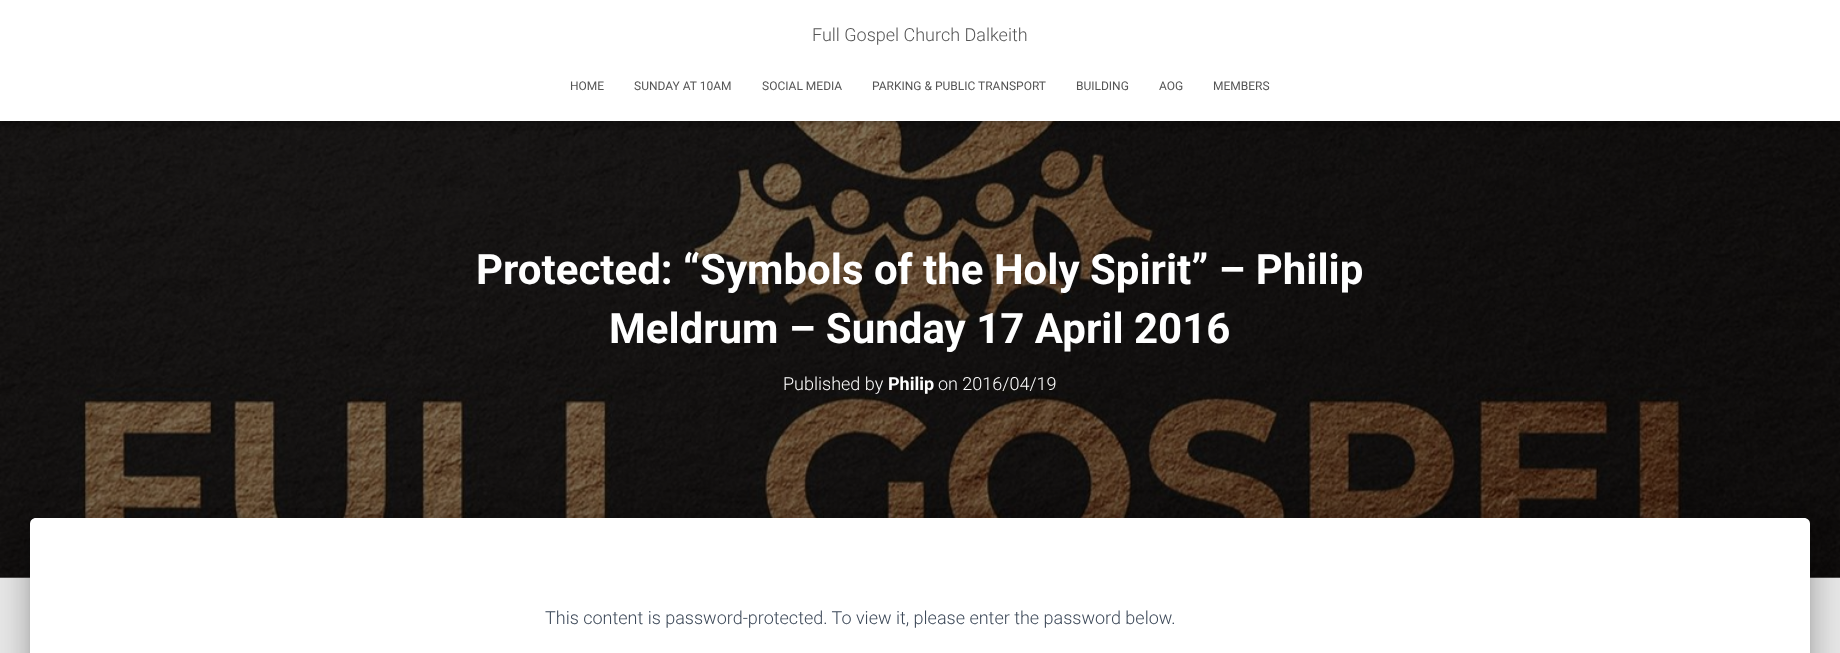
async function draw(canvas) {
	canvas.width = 1840;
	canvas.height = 653;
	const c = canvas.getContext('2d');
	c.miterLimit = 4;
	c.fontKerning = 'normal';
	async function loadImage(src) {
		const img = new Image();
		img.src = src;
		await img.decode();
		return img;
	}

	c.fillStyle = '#e5e5e5';
	c.fillRect(0, 0, 1840, 653);
	c.drawImage(await loadImage('img1.png'), 0, 121, 1840, 457);
	c.fillStyle = '#0000001a';
	c.filter = 'blur(2.5px)';
	c.beginPath();
	c.rect(2, 6, 1836, 117);
	c.fill();
	c.filter = 'none';
	c.fillStyle = '#0000001f';
	c.filter = 'blur(5px)';
	c.beginPath();
	c.rect(0, 1, 1840, 121);
	c.fill();
	c.filter = 'none';
	c.fillStyle = '#0000006b';
	c.filter = 'blur(5px)';
	c.beginPath();
	c.rect(6, 7, 1828, 109);
	c.fill();
	c.filter = 'none';
	c.fillStyle = '#fff';
	c.fillRect(0, 0, 1840, 121);
	c.font = '300 18px Roboto';
	c.fillStyle = '#555';
	c.fillText('Full Gospel Church Dalkeith', 812, 41);
	c.font = '12px Roboto';
	for (const [text, x, y] of [
		['HOME', 570, 90],
		['SUNDAY AT 10AM', 634, 90],
		['SOCIAL MEDIA', 762, 90],
		['PARKING & PUBLIC TRANSPORT', 872, 90],
		['BUILDING', 1076, 90],
		['AOG', 1159, 90],
		['MEMBERS', 1213, 90],
	]) {
		c.fillText(text, x, y);
	}
	c.font = 'bold 42px Roboto';
	c.fillStyle = '#fff';
	c.fillText('Protected: “Symbols of the Holy Spirit” – Philip', 476, 284);
	c.fillText('Meldrum – Sunday 17 April 2016', 609, 343);
	c.font = '300 18px Roboto';
	c.fillText('Published by', 783, 390);
	c.font = 'bold 18px Roboto';
	c.fillText('Philip', 888, 390);
	c.font = '300 18px Roboto';
	c.fillText('on 2016/04/19', 938, 390);
	c.fillStyle = '#00000033';
	c.filter = 'blur(5px)';
	c.beginPath();
	c.roundRect(35, 531, 1770, 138, 1);
	c.fill();
	c.filter = 'none';
	c.fillStyle = '#0000001f';
	c.filter = 'blur(15px)';
	c.beginPath();
	c.roundRect(25, 519, 1790, 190, 11);
	c.fill();
	c.filter = 'none';
	c.fillStyle = '#00000024';
	c.filter = 'blur(12px)';
	c.beginPath();
	c.roundRect(28, 532, 1784, 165, 8);
	c.fill();
	c.filter = 'none';
	c.fillStyle = '#fff';
	c.beginPath();
	c.moveTo(36, 518);
	c.lineTo(1804, 518);
	c.bezierCurveTo(1807.5, 518, 1810, 520.5, 1810, 524);
	c.lineTo(1810, 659);
	c.lineTo(30, 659);
	c.lineTo(30, 524);
	c.bezierCurveTo(30, 520.5, 32.5, 518, 36, 518);
	c.closePath();
	c.fill();
	c.fillStyle = '#3c4858';
	c.fillText('This content is password-protected. To view it, please enter the password below.', 545, 624);
}

draw(document.querySelector('canvas'));
